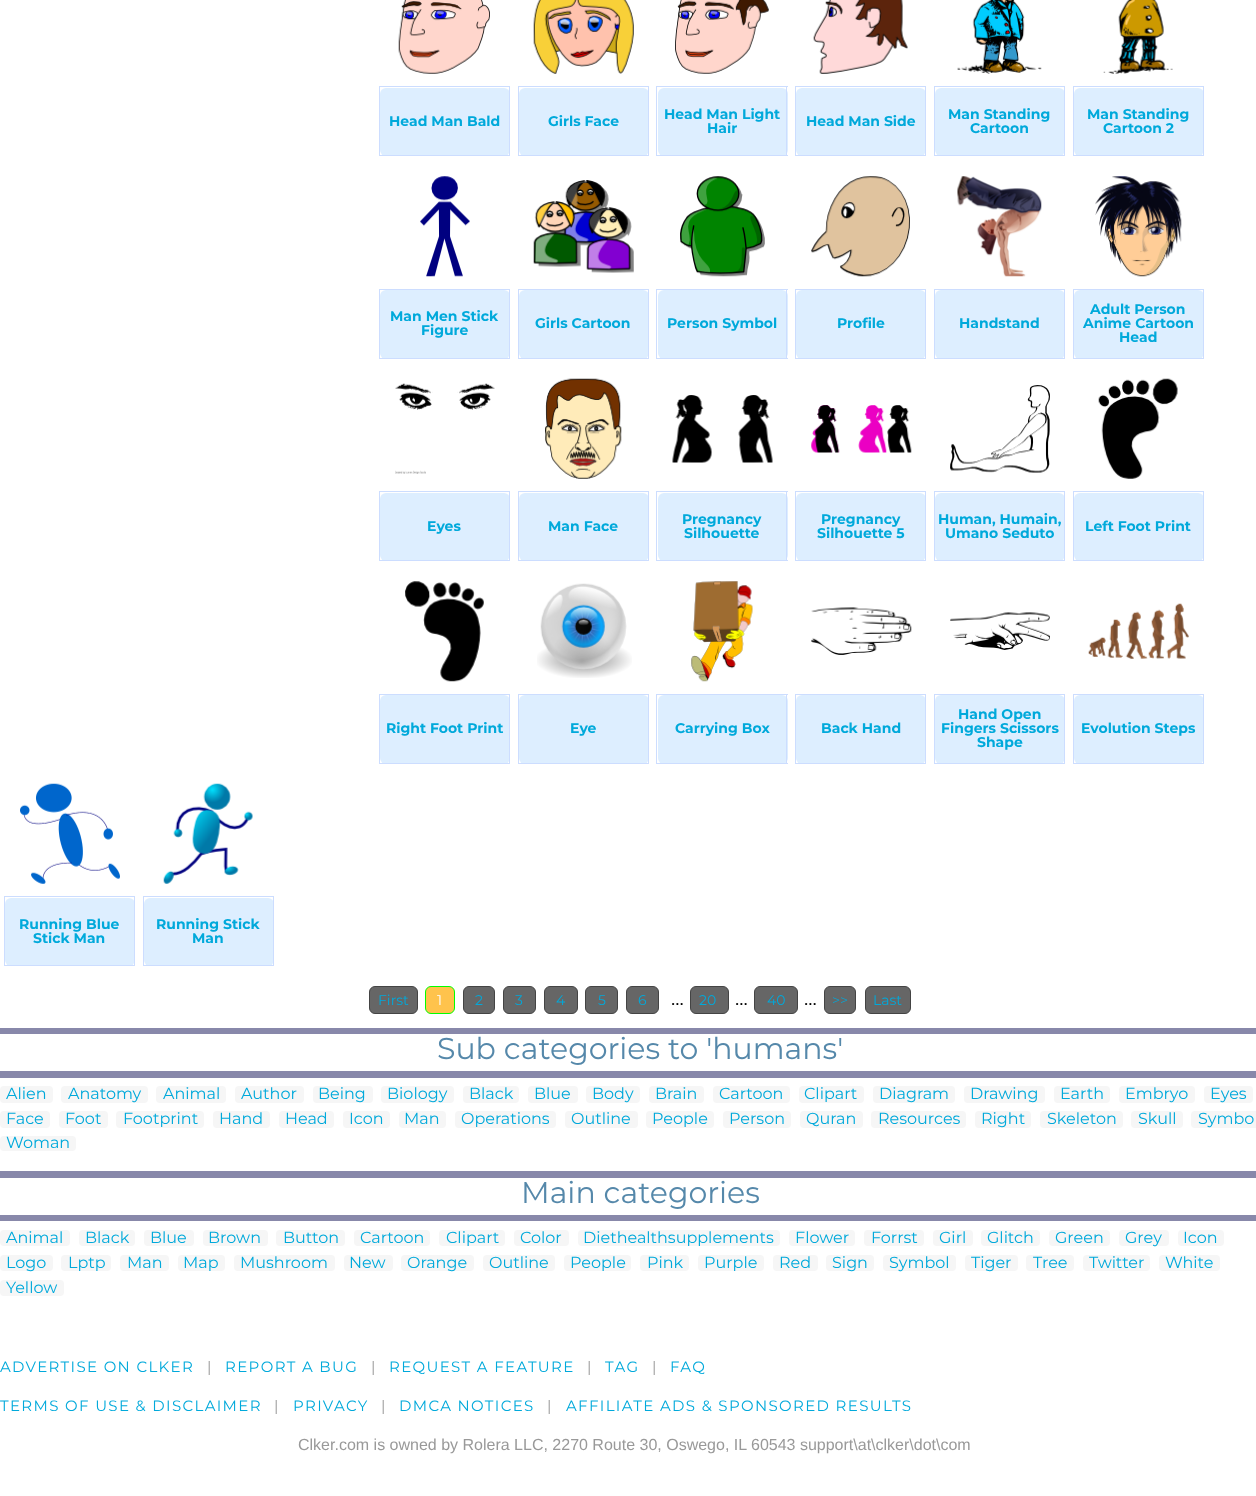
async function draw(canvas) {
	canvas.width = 1256;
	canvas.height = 1496;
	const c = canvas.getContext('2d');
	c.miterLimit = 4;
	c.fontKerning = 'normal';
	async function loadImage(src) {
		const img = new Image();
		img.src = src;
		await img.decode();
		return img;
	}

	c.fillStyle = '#fff';
	c.fillRect(0, 0, 1256, 1496);
	c.drawImage(await loadImage('img1.png'), 398, 0, 92, 74);
	c.fillStyle = '#def';
	c.beginPath();
	c.roundRect(380, 88, 130, 68, 6);
	c.fill();
	for (const [x, y, w, h, color] of [
		[379, 86, 131, 1, '#cdf'],
		[509, 86, 1, 70, '#cdf'],
		[379, 155, 131, 1, '#cdf'],
		[379, 86, 1, 70, '#cdf'],
	]) {
		c.fillStyle = color;
		c.fillRect(x, y, w, h);
	}
	c.font = 'bold 14px Montserrat';
	c.fillStyle = '#00a9db';
	c.fillText('Head Man Bald', 389, 126);
	c.drawImage(await loadImage('img2.png'), 533, 0, 101, 74);
	c.fillStyle = '#def';
	c.beginPath();
	c.roundRect(519, 88, 130, 68, 6);
	c.fill();
	for (const [x, y, w, h, color] of [
		[518, 86, 131, 1, '#cdf'],
		[648, 86, 1, 70, '#cdf'],
		[518, 155, 131, 1, '#cdf'],
		[518, 86, 1, 70, '#cdf'],
	]) {
		c.fillStyle = color;
		c.fillRect(x, y, w, h);
	}
	c.fillStyle = '#00a9db';
	c.fillText('Girls Face', 548, 126);
	c.drawImage(await loadImage('img3.png'), 675, 0, 94, 74);
	c.fillStyle = '#def';
	c.beginPath();
	c.roundRect(658, 88, 130, 68, 6);
	c.fill();
	for (const [x, y, w, h, color] of [
		[656, 86, 132, 1, '#cdf'],
		[786, 86, 1, 70, '#cdf'],
		[656, 155, 132, 1, '#cdf'],
		[656, 86, 1, 70, '#cdf'],
	]) {
		c.fillStyle = color;
		c.fillRect(x, y, w, h);
	}
	c.fillStyle = '#00a9db';
	c.fillText('Head Man Light', 664, 119);
	c.fillText('Hair', 707, 133);
	c.drawImage(await loadImage('img4.png'), 813, 0, 95, 74);
	c.fillStyle = '#def';
	c.beginPath();
	c.roundRect(796, 88, 130, 68, 6);
	c.fill();
	for (const [x, y, w, h, color] of [
		[795, 86, 131, 1, '#cdf'],
		[925, 86, 1, 70, '#cdf'],
		[795, 155, 131, 1, '#cdf'],
		[795, 86, 1, 70, '#cdf'],
	]) {
		c.fillStyle = color;
		c.fillRect(x, y, w, h);
	}
	c.fillStyle = '#00a9db';
	c.fillText('Head Man Side', 806, 126);
	c.drawImage(await loadImage('img5.png'), 957, 0, 85, 74);
	c.fillStyle = '#def';
	c.beginPath();
	c.roundRect(935, 88, 130, 68, 6);
	c.fill();
	for (const [x, y, w, h, color] of [
		[934, 86, 131, 1, '#cdf'],
		[1064, 86, 1, 70, '#cdf'],
		[934, 155, 131, 1, '#cdf'],
		[934, 86, 1, 70, '#cdf'],
	]) {
		c.fillStyle = color;
		c.fillRect(x, y, w, h);
	}
	c.fillStyle = '#00a9db';
	c.fillText('Man Standing', 948, 119);
	c.fillText('Cartoon', 970, 133);
	c.drawImage(await loadImage('img6.png'), 1103, 0, 70, 74);
	c.fillStyle = '#def';
	c.beginPath();
	c.roundRect(1074, 88, 130, 68, 6);
	c.fill();
	for (const [x, y, w, h, color] of [
		[1073, 86, 131, 1, '#cdf'],
		[1203, 86, 1, 70, '#cdf'],
		[1073, 155, 131, 1, '#cdf'],
		[1073, 86, 1, 70, '#cdf'],
	]) {
		c.fillStyle = color;
		c.fillRect(x, y, w, h);
	}
	c.fillStyle = '#00a9db';
	c.fillText('Man Standing', 1087, 119);
	c.fillText('Cartoon 2', 1103, 133);
	c.drawImage(await loadImage('img7.png'), 420, 176, 50, 101);
	c.fillStyle = '#def';
	c.beginPath();
	c.roundRect(380, 290, 130, 69, 6);
	c.fill();
	for (const [x, y, w, h, color] of [
		[379, 289, 131, 1, '#cdf'],
		[509, 289, 1, 70, '#cdf'],
		[379, 358, 131, 1, '#cdf'],
		[379, 289, 1, 70, '#cdf'],
	]) {
		c.fillStyle = color;
		c.fillRect(x, y, w, h);
	}
	c.fillStyle = '#00a9db';
	c.fillText('Man Men Stick', 390, 321);
	c.fillText('Figure', 421, 335);
	c.drawImage(await loadImage('img8.png'), 533, 180, 101, 93);
	c.fillStyle = '#def';
	c.beginPath();
	c.roundRect(519, 290, 130, 69, 6);
	c.fill();
	for (const [x, y, w, h, color] of [
		[518, 289, 131, 1, '#cdf'],
		[648, 289, 1, 70, '#cdf'],
		[518, 358, 131, 1, '#cdf'],
		[518, 289, 1, 70, '#cdf'],
	]) {
		c.fillStyle = color;
		c.fillRect(x, y, w, h);
	}
	c.fillStyle = '#00a9db';
	c.fillText('Girls Cartoon', 535, 328);
	c.drawImage(await loadImage('img9.png'), 680, 176, 85, 101);
	c.fillStyle = '#def';
	c.beginPath();
	c.roundRect(658, 290, 130, 69, 6);
	c.fill();
	for (const [x, y, w, h, color] of [
		[656, 289, 132, 1, '#cdf'],
		[786, 289, 1, 70, '#cdf'],
		[656, 358, 132, 1, '#cdf'],
		[656, 289, 1, 70, '#cdf'],
	]) {
		c.fillStyle = color;
		c.fillRect(x, y, w, h);
	}
	c.fillStyle = '#00a9db';
	c.fillText('Person Symbol', 667, 328);
	c.drawImage(await loadImage('img10.png'), 811, 176, 99, 101);
	c.fillStyle = '#def';
	c.beginPath();
	c.roundRect(796, 290, 130, 69, 6);
	c.fill();
	for (const [x, y, w, h, color] of [
		[795, 289, 131, 1, '#cdf'],
		[925, 289, 1, 70, '#cdf'],
		[795, 358, 131, 1, '#cdf'],
		[795, 289, 1, 70, '#cdf'],
	]) {
		c.fillStyle = color;
		c.fillRect(x, y, w, h);
	}
	c.fillStyle = '#00a9db';
	c.fillText('Profile', 837, 328);
	c.drawImage(await loadImage('img11.png'), 957, 176, 85, 101);
	c.fillStyle = '#def';
	c.beginPath();
	c.roundRect(935, 290, 130, 69, 6);
	c.fill();
	for (const [x, y, w, h, color] of [
		[934, 289, 131, 1, '#cdf'],
		[1064, 289, 1, 70, '#cdf'],
		[934, 358, 131, 1, '#cdf'],
		[934, 289, 1, 70, '#cdf'],
	]) {
		c.fillStyle = color;
		c.fillRect(x, y, w, h);
	}
	c.fillStyle = '#00a9db';
	c.fillText('Handstand', 959, 328);
	c.drawImage(await loadImage('img12.png'), 1095, 176, 87, 101);
	c.fillStyle = '#def';
	c.beginPath();
	c.roundRect(1074, 290, 130, 69, 6);
	c.fill();
	for (const [x, y, w, h, color] of [
		[1073, 289, 131, 1, '#cdf'],
		[1203, 289, 1, 70, '#cdf'],
		[1073, 358, 131, 1, '#cdf'],
		[1073, 289, 1, 70, '#cdf'],
	]) {
		c.fillStyle = color;
		c.fillRect(x, y, w, h);
	}
	c.fillStyle = '#00a9db';
	for (const [text, x, y] of [
		['Adult Person', 1090, 314],
		['Anime Cartoon', 1083, 328],
		['Head', 1119, 342],
	]) {
		c.fillText(text, x, y);
	}
	c.drawImage(await loadImage('img13.png'), 395, 383, 100, 91);
	c.fillStyle = '#def';
	c.beginPath();
	c.roundRect(380, 493, 130, 68, 6);
	c.fill();
	for (const [x, y, w, h, color] of [
		[379, 491, 131, 1, '#cdf'],
		[509, 491, 1, 70, '#cdf'],
		[379, 560, 131, 1, '#cdf'],
		[379, 491, 1, 70, '#cdf'],
	]) {
		c.fillStyle = color;
		c.fillRect(x, y, w, h);
	}
	c.fillStyle = '#00a9db';
	c.fillText('Eyes', 427, 531);
	c.drawImage(await loadImage('img14.png'), 545, 378, 77, 101);
	c.fillStyle = '#def';
	c.beginPath();
	c.roundRect(519, 493, 130, 68, 6);
	c.fill();
	for (const [x, y, w, h, color] of [
		[518, 491, 131, 1, '#cdf'],
		[648, 491, 1, 70, '#cdf'],
		[518, 560, 131, 1, '#cdf'],
		[518, 491, 1, 70, '#cdf'],
	]) {
		c.fillStyle = color;
		c.fillRect(x, y, w, h);
	}
	c.fillStyle = '#00a9db';
	c.fillText('Man Face', 548, 531);
	c.drawImage(await loadImage('img15.png'), 672, 395, 101, 68);
	c.fillStyle = '#def';
	c.beginPath();
	c.roundRect(658, 493, 130, 68, 6);
	c.fill();
	for (const [x, y, w, h, color] of [
		[656, 491, 132, 1, '#cdf'],
		[786, 491, 1, 70, '#cdf'],
		[656, 560, 132, 1, '#cdf'],
		[656, 491, 1, 70, '#cdf'],
	]) {
		c.fillStyle = color;
		c.fillRect(x, y, w, h);
	}
	c.fillStyle = '#00a9db';
	c.fillText('Pregnancy', 682, 524);
	c.fillText('Silhouette', 684, 538);
	c.drawImage(await loadImage('img16.png'), 811, 405, 101, 48);
	c.fillStyle = '#def';
	c.beginPath();
	c.roundRect(796, 493, 130, 68, 6);
	c.fill();
	for (const [x, y, w, h, color] of [
		[795, 491, 131, 1, '#cdf'],
		[925, 491, 1, 70, '#cdf'],
		[795, 560, 131, 1, '#cdf'],
		[795, 491, 1, 70, '#cdf'],
	]) {
		c.fillStyle = color;
		c.fillRect(x, y, w, h);
	}
	c.fillStyle = '#00a9db';
	c.fillText('Pregnancy', 821, 524);
	c.fillText('Silhouette 5', 817, 538);
	c.drawImage(await loadImage('img17.png'), 950, 385, 100, 88);
	c.fillStyle = '#def';
	c.beginPath();
	c.roundRect(935, 493, 130, 68, 6);
	c.fill();
	for (const [x, y, w, h, color] of [
		[934, 491, 131, 1, '#cdf'],
		[1064, 491, 1, 70, '#cdf'],
		[934, 560, 131, 1, '#cdf'],
		[934, 491, 1, 70, '#cdf'],
	]) {
		c.fillStyle = color;
		c.fillRect(x, y, w, h);
	}
	c.fillStyle = '#00a9db';
	c.fillText('Human, Humain,', 938, 524);
	c.fillText('Umano Seduto', 945, 538);
	c.drawImage(await loadImage('img18.png'), 1098, 378, 80, 101);
	c.fillStyle = '#def';
	c.beginPath();
	c.roundRect(1074, 493, 130, 68, 6);
	c.fill();
	for (const [x, y, w, h, color] of [
		[1073, 491, 131, 1, '#cdf'],
		[1203, 491, 1, 70, '#cdf'],
		[1073, 560, 131, 1, '#cdf'],
		[1073, 491, 1, 70, '#cdf'],
	]) {
		c.fillStyle = color;
		c.fillRect(x, y, w, h);
	}
	c.fillStyle = '#00a9db';
	c.fillText('Left Foot Print', 1085, 531);
	c.drawImage(await loadImage('img19.png'), 405, 581, 79, 101);
	c.fillStyle = '#def';
	c.beginPath();
	c.roundRect(380, 695, 130, 69, 6);
	c.fill();
	for (const [x, y, w, h, color] of [
		[379, 694, 131, 1, '#cdf'],
		[509, 694, 1, 70, '#cdf'],
		[379, 763, 131, 1, '#cdf'],
		[379, 694, 1, 70, '#cdf'],
	]) {
		c.fillStyle = color;
		c.fillRect(x, y, w, h);
	}
	c.fillStyle = '#00a9db';
	c.fillText('Right Foot Print', 386, 733);
	c.drawImage(await loadImage('img20.png'), 537, 583, 95, 95);
	c.fillStyle = '#def';
	c.beginPath();
	c.roundRect(519, 695, 130, 69, 6);
	c.fill();
	for (const [x, y, w, h, color] of [
		[518, 694, 131, 1, '#cdf'],
		[648, 694, 1, 70, '#cdf'],
		[518, 763, 131, 1, '#cdf'],
		[518, 694, 1, 70, '#cdf'],
	]) {
		c.fillStyle = color;
		c.fillRect(x, y, w, h);
	}
	c.fillStyle = '#00a9db';
	c.fillText('Eye', 570, 733);
	c.drawImage(await loadImage('img21.png'), 691, 581, 62, 101);
	c.fillStyle = '#def';
	c.beginPath();
	c.roundRect(658, 695, 130, 69, 6);
	c.fill();
	for (const [x, y, w, h, color] of [
		[656, 694, 132, 1, '#cdf'],
		[786, 694, 1, 70, '#cdf'],
		[656, 763, 132, 1, '#cdf'],
		[656, 694, 1, 70, '#cdf'],
	]) {
		c.fillStyle = color;
		c.fillRect(x, y, w, h);
	}
	c.fillStyle = '#00a9db';
	c.fillText('Carrying Box', 675, 733);
	c.drawImage(await loadImage('img22.png'), 811, 607, 101, 48);
	c.fillStyle = '#def';
	c.beginPath();
	c.roundRect(796, 695, 130, 69, 6);
	c.fill();
	for (const [x, y, w, h, color] of [
		[795, 694, 131, 1, '#cdf'],
		[925, 694, 1, 70, '#cdf'],
		[795, 763, 131, 1, '#cdf'],
		[795, 694, 1, 70, '#cdf'],
	]) {
		c.fillStyle = color;
		c.fillRect(x, y, w, h);
	}
	c.fillStyle = '#00a9db';
	c.fillText('Back Hand', 821, 733);
	c.drawImage(await loadImage('img23.png'), 950, 612, 100, 38);
	c.fillStyle = '#def';
	c.beginPath();
	c.roundRect(935, 695, 130, 69, 6);
	c.fill();
	for (const [x, y, w, h, color] of [
		[934, 694, 131, 1, '#cdf'],
		[1064, 694, 1, 70, '#cdf'],
		[934, 763, 131, 1, '#cdf'],
		[934, 694, 1, 70, '#cdf'],
	]) {
		c.fillStyle = color;
		c.fillRect(x, y, w, h);
	}
	c.fillStyle = '#00a9db';
	for (const [text, x, y] of [
		['Hand Open', 958, 719],
		['Fingers Scissors', 941, 733],
		['Shape', 977, 747],
	]) {
		c.fillText(text, x, y);
	}
	c.drawImage(await loadImage('img24.png'), 1088, 603, 101, 56);
	c.fillStyle = '#def';
	c.beginPath();
	c.roundRect(1074, 695, 130, 69, 6);
	c.fill();
	for (const [x, y, w, h, color] of [
		[1073, 694, 131, 1, '#cdf'],
		[1203, 694, 1, 70, '#cdf'],
		[1073, 763, 131, 1, '#cdf'],
		[1073, 694, 1, 70, '#cdf'],
	]) {
		c.fillStyle = color;
		c.fillRect(x, y, w, h);
	}
	c.fillStyle = '#00a9db';
	c.fillText('Evolution Steps', 1081, 733);
	c.drawImage(await loadImage('img25.png'), 20, 783, 100, 101);
	c.fillStyle = '#def';
	c.beginPath();
	c.roundRect(5, 898, 130, 68, 6);
	c.fill();
	for (const [x, y, w, h, color] of [
		[4, 896, 131, 1, '#cdf'],
		[134, 896, 1, 70, '#cdf'],
		[4, 965, 131, 1, '#cdf'],
		[4, 896, 1, 70, '#cdf'],
	]) {
		c.fillStyle = color;
		c.fillRect(x, y, w, h);
	}
	c.fillStyle = '#00a9db';
	c.fillText('Running Blue', 19, 929);
	c.fillText('Stick Man', 33, 943);
	c.drawImage(await loadImage('img26.png'), 163, 783, 90, 101);
	c.fillStyle = '#def';
	c.beginPath();
	c.roundRect(144, 898, 130, 68, 6);
	c.fill();
	for (const [x, y, w, h, color] of [
		[143, 896, 131, 1, '#cdf'],
		[273, 896, 1, 70, '#cdf'],
		[143, 965, 131, 1, '#cdf'],
		[143, 896, 1, 70, '#cdf'],
	]) {
		c.fillStyle = color;
		c.fillRect(x, y, w, h);
	}
	c.fillStyle = '#00a9db';
	c.fillText('Running Stick', 156, 929);
	c.fillText('Man', 192, 943);
	c.fillStyle = '#666';
	c.beginPath();
	c.roundRect(369.5, 986.5, 48, 27, 5.5);
	c.fill();
	c.strokeStyle = '#444';
	c.stroke();
	c.font = '14px Montserrat';
	c.fillStyle = '#00a9db';
	c.fillText('First', 378, 1005);
	c.fillStyle = '#ffc34c';
	c.beginPath();
	c.roundRect(425.5, 986.5, 29, 27, 5.5);
	c.fill();
	c.strokeStyle = '#0f0';
	c.stroke();
	c.fillStyle = '#fff';
	c.fillText('1', 437, 1005);
	c.fillStyle = '#666';
	c.beginPath();
	c.roundRect(463.5, 986.5, 31, 27, 5.5);
	c.fill();
	c.strokeStyle = '#444';
	c.stroke();
	c.fillStyle = '#00a9db';
	c.fillText('2', 475, 1005);
	c.fillStyle = '#666';
	c.beginPath();
	c.roundRect(503.5, 986.5, 32, 27, 5.5);
	c.fill();
	c.stroke();
	c.fillStyle = '#00a9db';
	c.fillText('3', 515, 1005);
	c.fillStyle = '#666';
	c.beginPath();
	c.roundRect(544.5, 986.5, 33, 27, 5.5);
	c.fill();
	c.stroke();
	c.fillStyle = '#00a9db';
	c.fillText('4', 556, 1005);
	c.fillStyle = '#666';
	c.beginPath();
	c.roundRect(585.5, 986.5, 32, 27, 5.5);
	c.fill();
	c.stroke();
	c.fillStyle = '#00a9db';
	c.fillText('5', 598, 1005);
	c.fillStyle = '#666';
	c.beginPath();
	c.roundRect(626.5, 986.5, 32, 27, 5.5);
	c.fill();
	c.stroke();
	c.fillStyle = '#00a9db';
	c.fillText('6', 638, 1005);
	c.fillStyle = '#666';
	c.beginPath();
	c.roundRect(690.5, 986.5, 38, 27, 5.5);
	c.fill();
	c.stroke();
	c.fillStyle = '#00a9db';
	c.fillText('20', 699, 1005);
	c.fillStyle = '#666';
	c.beginPath();
	c.roundRect(754.5, 986.5, 43, 27, 5.5);
	c.fill();
	c.stroke();
	c.fillStyle = '#00a9db';
	c.fillText('40', 767, 1005);
	c.fillStyle = '#666';
	c.beginPath();
	c.roundRect(824.5, 986.5, 31, 27, 5.5);
	c.fill();
	c.stroke();
	c.fillStyle = '#00a9db';
	c.fillText('>>', 832, 1005);
	c.fillStyle = '#666';
	c.beginPath();
	c.roundRect(865.5, 986.5, 45, 27, 5.5);
	c.fill();
	c.stroke();
	c.fillStyle = '#00a9db';
	c.fillText('Last', 873, 1005);
	c.font = '20px Montserrat';
	c.fillStyle = '#000';
	for (const [text, x, y] of [
		['...', 671, 1005],
		['...', 735, 1005],
		['...', 804, 1005],
	]) {
		c.fillText(text, x, y);
	}
	c.fillStyle = '#88a';
	c.fillRect(0, 1028, 1256, 6);
	c.fillRect(0, 1071, 1256, 7);
	c.font = '30px Montserrat';
	c.fillStyle = '#58a';
	c.fillText('Sub categories to \'humans\'', 437, 1059);
	c.fillStyle = '#f6f6f6';
	c.beginPath();
	c.roundRect(0, 1086, 53, 17, 4);
	c.fill();
	c.font = '16px Montserrat';
	c.fillStyle = '#00a9db';
	c.fillText('Alien', 6, 1099);
	c.fillStyle = '#f6f6f6';
	c.beginPath();
	c.roundRect(61, 1086, 87, 17, 4);
	c.fill();
	c.fillStyle = '#00a9db';
	c.fillText('Anatomy', 68, 1099);
	c.fillStyle = '#f6f6f6';
	c.beginPath();
	c.roundRect(156, 1086, 70, 17, 4);
	c.fill();
	c.fillStyle = '#00a9db';
	c.fillText('Animal', 163, 1099);
	c.fillStyle = '#f6f6f6';
	c.beginPath();
	c.roundRect(235, 1086, 69, 17, 4);
	c.fill();
	c.fillStyle = '#00a9db';
	c.fillText('Author', 241, 1099);
	c.fillStyle = '#f6f6f6';
	c.beginPath();
	c.roundRect(313, 1086, 60, 17, 4);
	c.fill();
	c.fillStyle = '#00a9db';
	c.fillText('Being', 318, 1099);
	c.fillStyle = '#f6f6f6';
	c.beginPath();
	c.roundRect(381, 1086, 73, 17, 4);
	c.fill();
	c.fillStyle = '#00a9db';
	c.fillText('Biology', 387, 1099);
	c.fillStyle = '#f6f6f6';
	c.beginPath();
	c.roundRect(463, 1086, 56, 17, 4);
	c.fill();
	c.fillStyle = '#00a9db';
	c.fillText('Black', 469, 1099);
	c.fillStyle = '#f6f6f6';
	c.beginPath();
	c.roundRect(528, 1086, 50, 17, 4);
	c.fill();
	c.fillStyle = '#00a9db';
	c.fillText('Blue', 534, 1099);
	c.fillStyle = '#f6f6f6';
	c.beginPath();
	c.roundRect(586, 1086, 54, 17, 4);
	c.fill();
	c.fillStyle = '#00a9db';
	c.fillText('Body', 592, 1099);
	c.fillStyle = '#f6f6f6';
	c.beginPath();
	c.roundRect(649, 1086, 55, 17, 4);
	c.fill();
	c.fillStyle = '#00a9db';
	c.fillText('Brain', 655, 1099);
	c.fillStyle = '#f6f6f6';
	c.beginPath();
	c.roundRect(713, 1086, 77, 17, 4);
	c.fill();
	c.fillStyle = '#00a9db';
	c.fillText('Cartoon', 719, 1099);
	c.fillStyle = '#f6f6f6';
	c.beginPath();
	c.roundRect(799, 1086, 65, 17, 4);
	c.fill();
	c.fillStyle = '#00a9db';
	c.fillText('Clipart', 804, 1099);
	c.fillStyle = '#f6f6f6';
	c.beginPath();
	c.roundRect(873, 1086, 82, 17, 4);
	c.fill();
	c.fillStyle = '#00a9db';
	c.fillText('Diagram', 879, 1099);
	c.fillStyle = '#f6f6f6';
	c.beginPath();
	c.roundRect(964, 1086, 81, 17, 4);
	c.fill();
	c.fillStyle = '#00a9db';
	c.fillText('Drawing', 970, 1099);
	c.fillStyle = '#f6f6f6';
	c.beginPath();
	c.roundRect(1054, 1086, 56, 17, 4);
	c.fill();
	c.fillStyle = '#00a9db';
	c.fillText('Earth', 1060, 1099);
	c.fillStyle = '#f6f6f6';
	c.beginPath();
	c.roundRect(1119, 1086, 76, 17, 4);
	c.fill();
	c.fillStyle = '#00a9db';
	c.fillText('Embryo', 1125, 1099);
	c.fillStyle = '#f6f6f6';
	c.beginPath();
	c.roundRect(1204, 1086, 49, 17, 4);
	c.fill();
	c.fillStyle = '#00a9db';
	c.fillText('Eyes', 1210, 1099);
	c.fillStyle = '#f6f6f6';
	c.beginPath();
	c.roundRect(0, 1111, 50, 17, 4);
	c.fill();
	c.fillStyle = '#00a9db';
	c.fillText('Face', 6, 1124);
	c.fillStyle = '#f6f6f6';
	c.beginPath();
	c.roundRect(59, 1111, 49, 17, 4);
	c.fill();
	c.fillStyle = '#00a9db';
	c.fillText('Foot', 65, 1124);
	c.fillStyle = '#f6f6f6';
	c.beginPath();
	c.roundRect(116, 1111, 88, 17, 4);
	c.fill();
	c.fillStyle = '#00a9db';
	c.fillText('Footprint', 123, 1124);
	c.fillStyle = '#f6f6f6';
	c.beginPath();
	c.roundRect(213, 1111, 57, 17, 4);
	c.fill();
	c.fillStyle = '#00a9db';
	c.fillText('Hand', 219, 1124);
	c.fillStyle = '#f6f6f6';
	c.beginPath();
	c.roundRect(279, 1111, 55, 17, 4);
	c.fill();
	c.fillStyle = '#00a9db';
	c.fillText('Head', 285, 1124);
	c.fillStyle = '#f6f6f6';
	c.beginPath();
	c.roundRect(343, 1111, 47, 17, 4);
	c.fill();
	c.fillStyle = '#00a9db';
	c.fillText('Icon', 349, 1124);
	c.fillStyle = '#f6f6f6';
	c.beginPath();
	c.roundRect(399, 1111, 47, 17, 4);
	c.fill();
	c.fillStyle = '#00a9db';
	c.fillText('Man', 404, 1124);
	c.fillStyle = '#f6f6f6';
	c.beginPath();
	c.roundRect(455, 1111, 101, 17, 4);
	c.fill();
	c.fillStyle = '#00a9db';
	c.fillText('Operations', 461, 1124);
	c.fillStyle = '#f6f6f6';
	c.beginPath();
	c.roundRect(565, 1111, 73, 17, 4);
	c.fill();
	c.fillStyle = '#00a9db';
	c.fillText('Outline', 571, 1124);
	c.fillStyle = '#f6f6f6';
	c.beginPath();
	c.roundRect(646, 1111, 68, 17, 4);
	c.fill();
	c.fillStyle = '#00a9db';
	c.fillText('People', 652, 1124);
	c.fillStyle = '#f6f6f6';
	c.beginPath();
	c.roundRect(723, 1111, 68, 17, 4);
	c.fill();
	c.fillStyle = '#00a9db';
	c.fillText('Person', 729, 1124);
	c.fillStyle = '#f6f6f6';
	c.beginPath();
	c.roundRect(800, 1111, 63, 17, 4);
	c.fill();
	c.fillStyle = '#00a9db';
	c.fillText('Quran', 806, 1124);
	c.fillStyle = '#f6f6f6';
	c.beginPath();
	c.roundRect(871, 1111, 95, 17, 4);
	c.fill();
	c.fillStyle = '#00a9db';
	c.fillText('Resources', 878, 1124);
	c.fillStyle = '#f6f6f6';
	c.beginPath();
	c.roundRect(975, 1111, 56, 17, 4);
	c.fill();
	c.fillStyle = '#00a9db';
	c.fillText('Right', 981, 1124);
	c.fillStyle = '#f6f6f6';
	c.beginPath();
	c.roundRect(1040, 1111, 83, 17, 4);
	c.fill();
	c.fillStyle = '#00a9db';
	c.fillText('Skeleton', 1047, 1124);
	c.fillStyle = '#f6f6f6';
	c.beginPath();
	c.roundRect(1131, 1111, 52, 17, 4);
	c.fill();
	c.fillStyle = '#00a9db';
	c.fillText('Skull', 1138, 1124);
	c.fillStyle = '#f6f6f6';
	c.beginPath();
	c.roundRect(1191, 1111, 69, 17, 4);
	c.fill();
	c.fillStyle = '#00a9db';
	c.fillText('Symbo', 1198, 1124);
	c.fillStyle = '#f6f6f6';
	c.beginPath();
	c.roundRect(0, 1136, 76, 15, 4);
	c.fill();
	c.fillStyle = '#00a9db';
	c.fillText('Woman', 6, 1148);
	c.fillStyle = '#88a';
	c.fillRect(0, 1171, 1256, 7);
	c.fillRect(0, 1215, 1256, 6);
	c.font = '30px Montserrat';
	c.fillStyle = '#58a';
	c.fillText('Main categories', 521, 1203);
	c.fillStyle = '#f6f6f6';
	c.beginPath();
	c.roundRect(0, 1230, 70, 16, 4);
	c.fill();
	c.font = '16px Montserrat';
	c.fillStyle = '#00a9db';
	c.fillText('Animal', 6, 1243);
	c.fillStyle = '#f6f6f6';
	c.beginPath();
	c.roundRect(79, 1230, 56, 16, 4);
	c.fill();
	c.fillStyle = '#00a9db';
	c.fillText('Black', 85, 1243);
	c.fillStyle = '#f6f6f6';
	c.beginPath();
	c.roundRect(144, 1230, 50, 16, 4);
	c.fill();
	c.fillStyle = '#00a9db';
	c.fillText('Blue', 150, 1243);
	c.fillStyle = '#f6f6f6';
	c.beginPath();
	c.roundRect(203, 1230, 65, 16, 4);
	c.fill();
	c.fillStyle = '#00a9db';
	c.fillText('Brown', 208, 1243);
	c.fillStyle = '#f6f6f6';
	c.beginPath();
	c.roundRect(276, 1230, 69, 16, 4);
	c.fill();
	c.fillStyle = '#00a9db';
	c.fillText('Button', 283, 1243);
	c.fillStyle = '#f6f6f6';
	c.beginPath();
	c.roundRect(354, 1230, 76, 16, 4);
	c.fill();
	c.fillStyle = '#00a9db';
	c.fillText('Cartoon', 360, 1243);
	c.fillStyle = '#f6f6f6';
	c.beginPath();
	c.roundRect(439, 1230, 66, 16, 4);
	c.fill();
	c.fillStyle = '#00a9db';
	c.fillText('Clipart', 446, 1243);
	c.fillStyle = '#f6f6f6';
	c.beginPath();
	c.roundRect(514, 1230, 55, 16, 4);
	c.fill();
	c.fillStyle = '#00a9db';
	c.fillText('Color', 520, 1243);
	c.fillStyle = '#f6f6f6';
	c.beginPath();
	c.roundRect(578, 1230, 202, 16, 4);
	c.fill();
	c.fillStyle = '#00a9db';
	c.fillText('Diethealthsupplements', 583, 1243);
	c.fillStyle = '#f6f6f6';
	c.beginPath();
	c.roundRect(789, 1230, 66, 16, 4);
	c.fill();
	c.fillStyle = '#00a9db';
	c.fillText('Flower', 795, 1243);
	c.fillStyle = '#f6f6f6';
	c.beginPath();
	c.roundRect(864, 1230, 60, 16, 4);
	c.fill();
	c.fillStyle = '#00a9db';
	c.fillText('Forrst', 871, 1243);
	c.fillStyle = '#f6f6f6';
	c.beginPath();
	c.roundRect(933, 1230, 40, 16, 4);
	c.fill();
	c.fillStyle = '#00a9db';
	c.fillText('Girl', 939, 1243);
	c.fillStyle = '#f6f6f6';
	c.beginPath();
	c.roundRect(981, 1230, 59, 16, 4);
	c.fill();
	c.fillStyle = '#00a9db';
	c.fillText('Glitch', 987, 1243);
	c.fillStyle = '#f6f6f6';
	c.beginPath();
	c.roundRect(1049, 1230, 61, 16, 4);
	c.fill();
	c.fillStyle = '#00a9db';
	c.fillText('Green', 1055, 1243);
	c.fillStyle = '#f6f6f6';
	c.beginPath();
	c.roundRect(1119, 1230, 50, 16, 4);
	c.fill();
	c.fillStyle = '#00a9db';
	c.fillText('Grey', 1125, 1243);
	c.fillStyle = '#f6f6f6';
	c.beginPath();
	c.roundRect(1178, 1230, 46, 16, 4);
	c.fill();
	c.fillStyle = '#00a9db';
	c.fillText('Icon', 1183, 1243);
	c.fillStyle = '#f6f6f6';
	c.beginPath();
	c.roundRect(0, 1255, 53, 16, 4);
	c.fill();
	c.fillStyle = '#00a9db';
	c.fillText('Logo', 6, 1268);
	c.fillStyle = '#f6f6f6';
	c.beginPath();
	c.roundRect(61, 1255, 50, 16, 4);
	c.fill();
	c.fillStyle = '#00a9db';
	c.fillText('Lptp', 68, 1268);
	c.fillStyle = '#f6f6f6';
	c.beginPath();
	c.roundRect(120, 1255, 49, 16, 4);
	c.fill();
	c.fillStyle = '#00a9db';
	c.fillText('Man', 127, 1268);
	c.fillStyle = '#f6f6f6';
	c.beginPath();
	c.roundRect(178, 1255, 47, 16, 4);
	c.fill();
	c.fillStyle = '#00a9db';
	c.fillText('Map', 183, 1268);
	c.fillStyle = '#f6f6f6';
	c.beginPath();
	c.roundRect(234, 1255, 101, 16, 4);
	c.fill();
	c.fillStyle = '#00a9db';
	c.fillText('Mushroom', 240, 1268);
	c.fillStyle = '#f6f6f6';
	c.beginPath();
	c.roundRect(344, 1255, 49, 16, 4);
	c.fill();
	c.fillStyle = '#00a9db';
	c.fillText('New', 349, 1268);
	c.fillStyle = '#f6f6f6';
	c.beginPath();
	c.roundRect(401, 1255, 73, 16, 4);
	c.fill();
	c.fillStyle = '#00a9db';
	c.fillText('Orange', 407, 1268);
	c.fillStyle = '#f6f6f6';
	c.beginPath();
	c.roundRect(483, 1255, 72, 16, 4);
	c.fill();
	c.fillStyle = '#00a9db';
	c.fillText('Outline', 489, 1268);
	c.fillStyle = '#f6f6f6';
	c.beginPath();
	c.roundRect(564, 1255, 67, 16, 4);
	c.fill();
	c.fillStyle = '#00a9db';
	c.fillText('People', 570, 1268);
	c.fillStyle = '#f6f6f6';
	c.beginPath();
	c.roundRect(640, 1255, 49, 16, 4);
	c.fill();
	c.fillStyle = '#00a9db';
	c.fillText('Pink', 647, 1268);
	c.fillStyle = '#f6f6f6';
	c.beginPath();
	c.roundRect(698, 1255, 66, 16, 4);
	c.fill();
	c.fillStyle = '#00a9db';
	c.fillText('Purple', 704, 1268);
	c.fillStyle = '#f6f6f6';
	c.beginPath();
	c.roundRect(773, 1255, 45, 16, 4);
	c.fill();
	c.fillStyle = '#00a9db';
	c.fillText('Red', 779, 1268);
	c.fillStyle = '#f6f6f6';
	c.beginPath();
	c.roundRect(826, 1255, 48, 16, 4);
	c.fill();
	c.fillStyle = '#00a9db';
	c.fillText('Sign', 832, 1268);
	c.fillStyle = '#f6f6f6';
	c.beginPath();
	c.roundRect(883, 1255, 73, 16, 4);
	c.fill();
	c.fillStyle = '#00a9db';
	c.fillText('Symbol', 889, 1268);
	c.fillStyle = '#f6f6f6';
	c.beginPath();
	c.roundRect(965, 1255, 53, 16, 4);
	c.fill();
	c.fillStyle = '#00a9db';
	c.fillText('Tiger', 971, 1268);
	c.fillStyle = '#f6f6f6';
	c.beginPath();
	c.roundRect(1026, 1255, 48, 16, 4);
	c.fill();
	c.fillStyle = '#00a9db';
	c.fillText('Tree', 1033, 1268);
	c.fillStyle = '#f6f6f6';
	c.beginPath();
	c.roundRect(1083, 1255, 67, 16, 4);
	c.fill();
	c.fillStyle = '#00a9db';
	c.fillText('Twitter', 1089, 1268);
	c.fillStyle = '#f6f6f6';
	c.beginPath();
	c.roundRect(1159, 1255, 61, 16, 4);
	c.fill();
	c.fillStyle = '#00a9db';
	c.fillText('White', 1165, 1268);
	c.fillStyle = '#f6f6f6';
	c.beginPath();
	c.roundRect(0, 1280, 64, 16, 4);
	c.fill();
	c.fillStyle = '#00a9db';
	c.fillText('Yellow', 6, 1293);
	c.letterSpacing = '1.35px';
	c.font = '15px Montserrat';
	c.fillText('ADVERTISE ON CLKER', 0, 1372);
	c.fillStyle = '#999';
	c.fillText('|', 207, 1372);
	c.fillStyle = '#00a9db';
	c.fillText('REPORT A BUG', 225, 1372);
	c.fillStyle = '#999';
	c.fillText('|', 371, 1372);
	c.fillStyle = '#00a9db';
	c.fillText('REQUEST A FEATURE', 389, 1372);
	c.fillStyle = '#999';
	c.fillText('|', 587, 1372);
	c.fillStyle = '#00a9db';
	c.fillText('TAG', 605, 1372);
	c.fillStyle = '#999';
	c.fillText('|', 652, 1372);
	c.fillStyle = '#00a9db';
	c.fillText('FAQ', 670, 1372);
	c.fillText('TERMS OF USE & DISCLAIMER', 0, 1411);
	c.fillStyle = '#999';
	c.fillText('|', 274, 1411);
	c.fillStyle = '#00a9db';
	c.fillText('PRIVACY', 293, 1411);
	c.fillStyle = '#999';
	c.fillText('|', 381, 1411);
	c.fillStyle = '#00a9db';
	c.fillText('DMCA NOTICES', 399, 1411);
	c.fillStyle = '#999';
	c.fillText('|', 547, 1411);
	c.fillStyle = '#00a9db';
	c.fillText('AFFILIATE ADS & SPONSORED RESULTS', 566, 1411);
	c.letterSpacing = '0px';
	c.font = '16px Liberation Sans';
	c.fillStyle = '#999';
	c.fillText('Clker.com is owned by Rolera LLC, 2270 Route 30, Oswego, IL 60543 support\\at\\clker\\dot\\com', 298, 1450);
}

draw(document.querySelector('canvas'));
